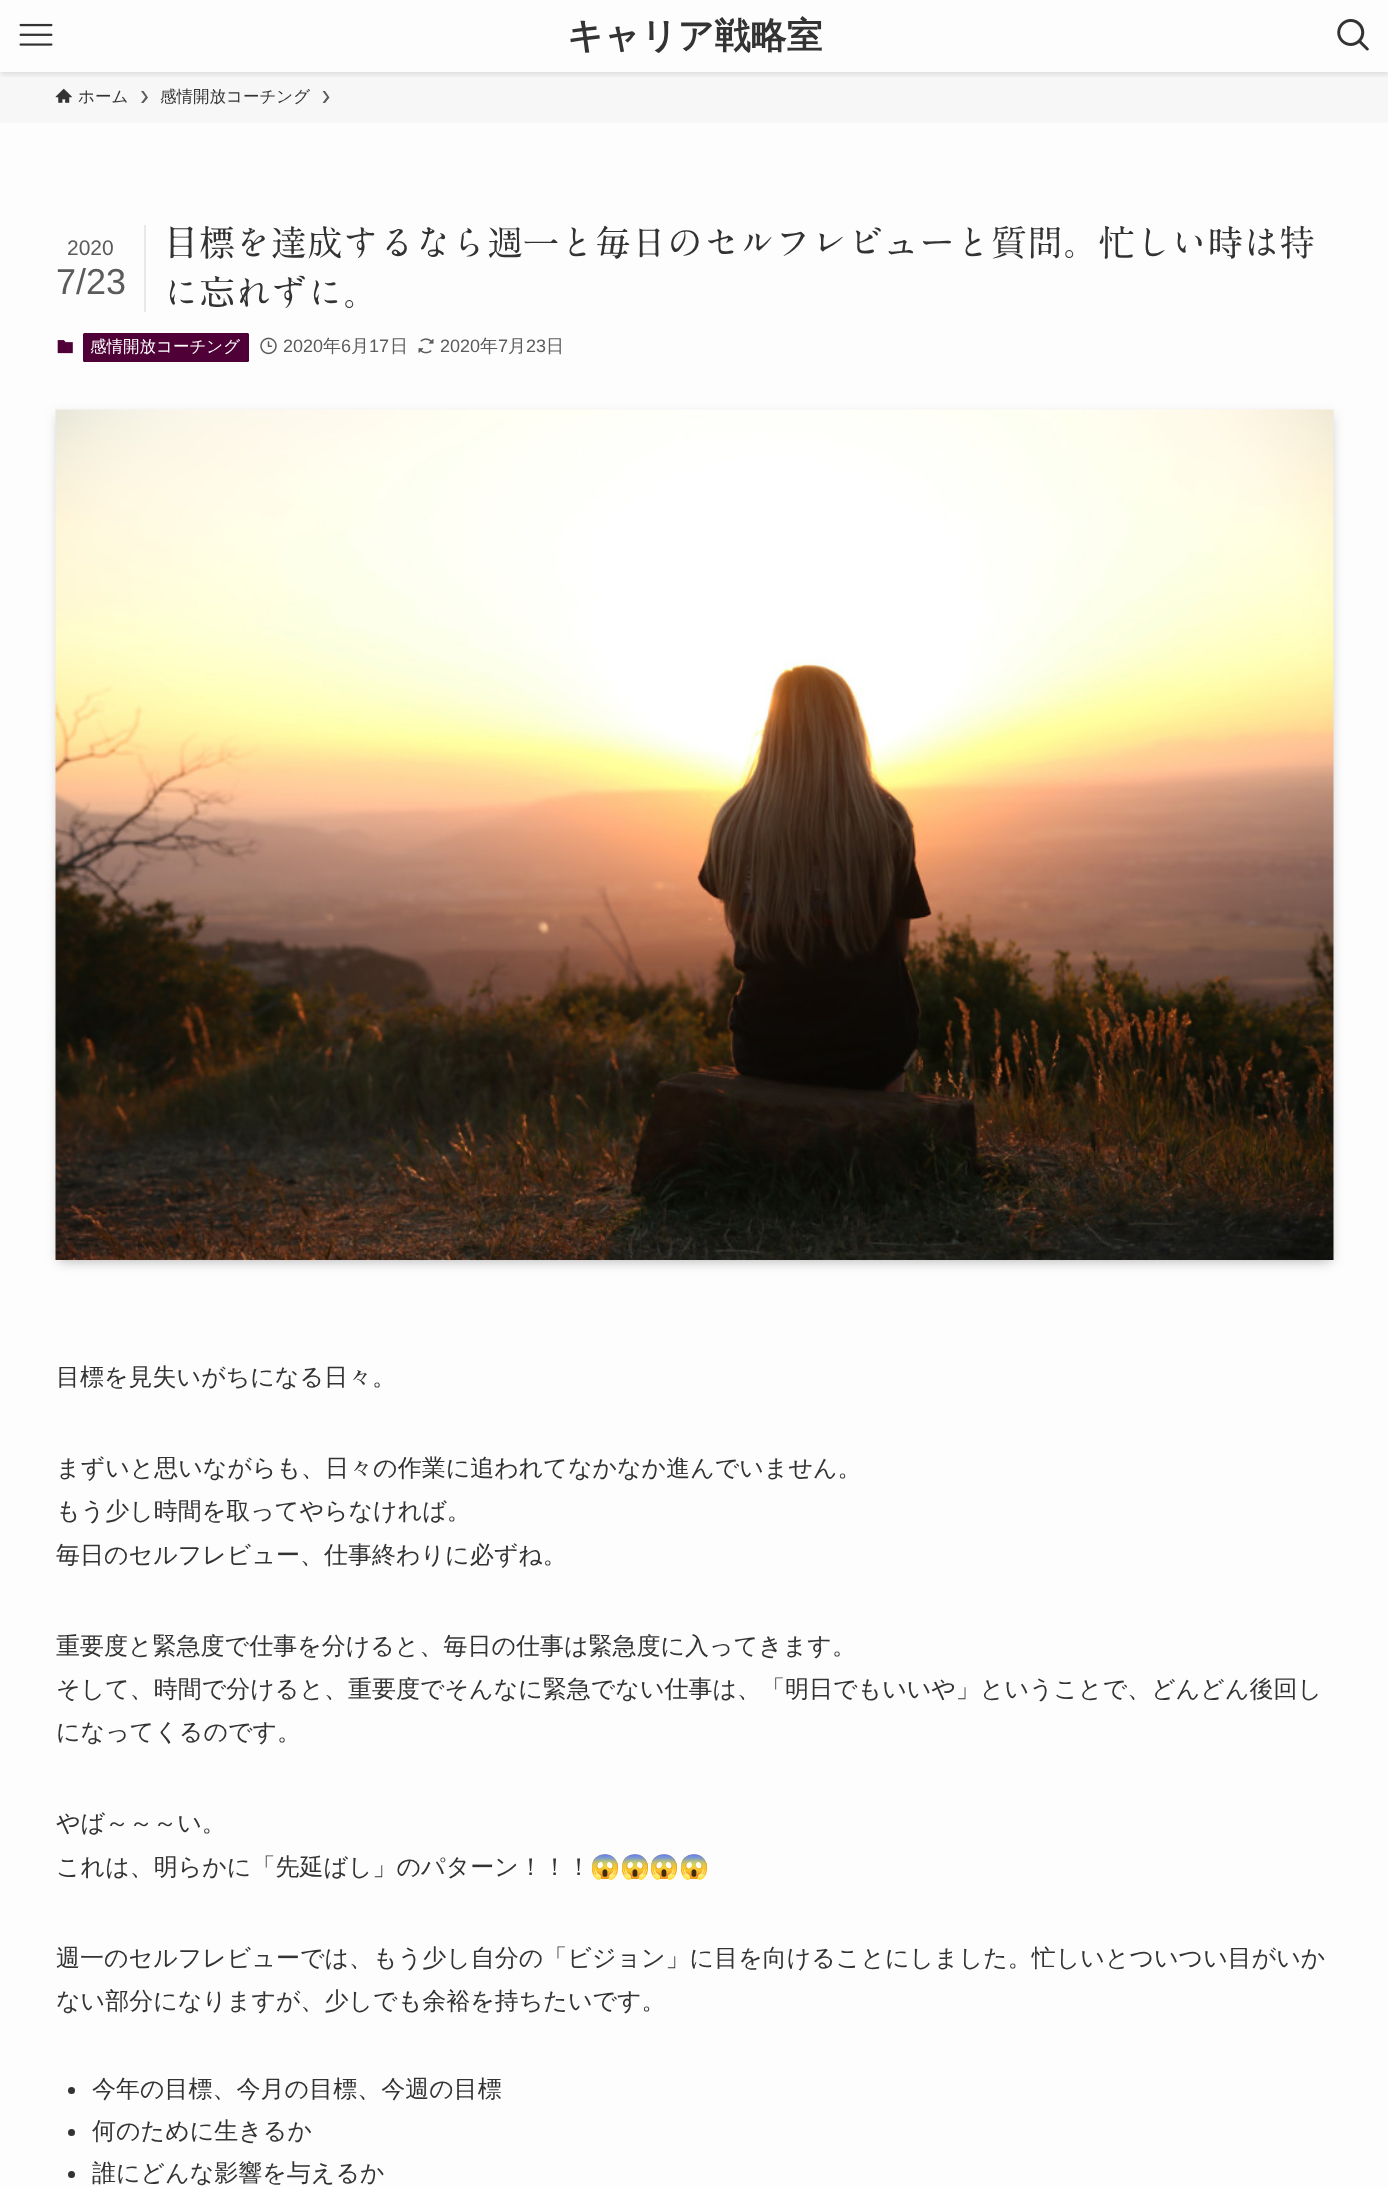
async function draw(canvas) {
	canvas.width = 1388;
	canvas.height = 2187;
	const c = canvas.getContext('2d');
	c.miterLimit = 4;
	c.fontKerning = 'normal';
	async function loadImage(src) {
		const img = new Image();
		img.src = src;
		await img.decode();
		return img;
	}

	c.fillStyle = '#fdfdfd';
	c.fillRect(0, 0, 1388, 2187);
	c.fillStyle = '#f7f7f7';
	c.fillRect(0, 72, 1388, 51);
	c.save();
	c.beginPath();
	c.rect(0, 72, 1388, 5);
	c.clip();
	c.fillStyle = '#0000001f';
	c.filter = 'blur(3px)';
	c.beginPath();
	c.rect(0, 2, 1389, 72);
	c.fill();
	c.filter = 'none';
	c.restore();
	c.drawImage(await loadImage('img1.png'), 19, 23, 34, 23);
	c.font = 'bold 36px WenQuanYi Zen Hei';
	c.fillStyle = '#333';
	c.fillText('キャリア戦略室', 567, 48);
	c.drawImage(await loadImage('img2.png'), 1337, 19, 32, 32);
	c.drawImage(await loadImage('img3.png'), 55, 88, 17, 15);
	c.font = '500 16.5px WenQuanYi Zen Hei';
	c.fillText('ホーム', 78, 102);
	c.fillStyle = '#5a5a5a';
	c.beginPath();
	c.moveTo(143.5, 91);
	c.lineTo(141, 91);
	c.lineTo(145.5, 97);
	c.lineTo(141, 103);
	c.lineTo(143.5, 103);
	c.lineTo(148, 97.5);
	c.closePath();
	c.fill();
	c.fillStyle = '#333';
	c.fillText('感情開放コーチング', 160, 102);
	c.fillStyle = '#5a5a5a';
	c.beginPath();
	c.moveTo(325, 91);
	c.lineTo(322.5, 91);
	c.lineTo(327, 97);
	c.lineTo(322.5, 103);
	c.lineTo(325, 103);
	c.lineTo(329.5, 97.5);
	c.closePath();
	c.fill();
	c.fillStyle = '#e8e8e8';
	c.fillRect(144, 225, 2, 87);
	c.font = '21px Liberation Sans';
	c.fillStyle = '#5b5b5b';
	c.fillText('2020', 67, 255);
	c.font = '36px Liberation Sans';
	c.fillText('7/23', 56, 294);
	c.font = '36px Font';
	c.fillStyle = '#333';
	c.fillText('目標を達成するなら週一と毎日のセルフレビューと質問。忙しい時は特', 163, 256);
	c.fillText('に忘れずに。', 163, 306);
	c.drawImage(await loadImage('img4.png'), 57, 340, 16, 14);
	c.fillStyle = '#4f0037';
	c.beginPath();
	c.roundRect(83, 333, 166, 29, 1.5);
	c.fill();
	c.font = '500 16.5px WenQuanYi Zen Hei';
	c.fillStyle = '#fff';
	c.fillText('感情開放コーチング', 90, 352);
	c.drawImage(await loadImage('img5.png'), 260, 337, 17, 18);
	c.font = '18px Liberation Sans';
	c.fillStyle = '#5b5b5b';
	c.fillText('2020', 283, 352);
	c.font = '500 18px WenQuanYi Zen Hei';
	c.fillText('年', 323, 352);
	c.font = '18px Liberation Sans';
	c.fillText('6', 341, 352);
	c.font = '500 18px WenQuanYi Zen Hei';
	c.fillText('月', 351, 352);
	c.font = '18px Liberation Sans';
	c.fillText('17', 369, 352);
	c.font = '500 18px WenQuanYi Zen Hei';
	c.fillText('日', 390, 352);
	c.drawImage(await loadImage('img6.png'), 418, 338, 16, 16);
	c.font = '18px Liberation Sans';
	c.fillText('2020', 440, 352);
	c.font = '500 18px WenQuanYi Zen Hei';
	c.fillText('年', 480, 352);
	c.font = '18px Liberation Sans';
	c.fillText('7', 498, 352);
	c.font = '500 18px WenQuanYi Zen Hei';
	c.fillText('月', 508, 352);
	c.font = '18px Liberation Sans';
	c.fillText('23', 526, 352);
	c.font = '500 18px WenQuanYi Zen Hei';
	c.fillText('日', 546, 352);
	c.fillStyle = '#00000033';
	c.filter = 'blur(6px)';
	c.beginPath();
	c.rect(62, 422, 1266, 838);
	c.fill();
	c.filter = 'none';
	c.fillStyle = '#0000001a';
	c.filter = 'blur(6px)';
	c.beginPath();
	c.rect(56, 413, 1278, 850);
	c.fill();
	c.filter = 'none';
	c.drawImage(await loadImage('img7.png'), 55, 409, 1279, 851);
	c.font = '500 24px WenQuanYi Zen Hei';
	c.fillStyle = '#333';
	for (const [text, x, y] of [
		['目標を見失いがちになる日々。', 56, 1385],
		['まずいと思いながらも、日々の作業に追われてなかなか進んでいません。', 56, 1476],
		['もう少し時間を取ってやらなければ。', 56, 1519],
		['毎日のセルフレビュー、仕事終わりに必ずね。', 56, 1563],
		['重要度と緊急度で仕事を分けると、毎日の仕事は緊急度に入ってきます。', 56, 1654],
		['そして、時間で分けると、重要度でそんなに緊急でない仕事は、「明日でもいいや」ということで、どんどん後回し', 56, 1697],
		['になってくるのです。', 56, 1740],
		['やば～～～い。', 56, 1831],
		['これは、明らかに「先延ばし」のパターン！！！', 56, 1875],
	]) {
		c.fillText(text, x, y);
	}
	c.font = '24px Noto Color Emoji';
	c.fillText('😱😱😱😱', 590, 1875);
	c.font = '500 24px WenQuanYi Zen Hei';
	c.fillText('週一のセルフレビューでは、もう少し自分の「ビジョン」に目を向けることにしました。忙しいとついつい目がいか', 56, 1966);
	c.fillText('ない部分になりますが、少しでも余裕を持ちたいです。', 56, 2009);
	c.beginPath();
	c.arc(71.5, 2090.5, 3.5, 0, 2 * Math.PI);
	c.fill();
	c.fillText('今年の目標、今月の目標、今週の目標', 92, 2097);
	c.beginPath();
	c.arc(71.5, 2132.5, 3.5, 0, 2 * Math.PI);
	c.fill();
	c.fillText('何のために生きるか', 92, 2139);
	c.beginPath();
	c.arc(71.5, 2174.5, 3.5, 0, 2 * Math.PI);
	c.fill();
	c.fillText('誰にどんな影響を与えるか', 92, 2181);
}

draw(document.querySelector('canvas'));
